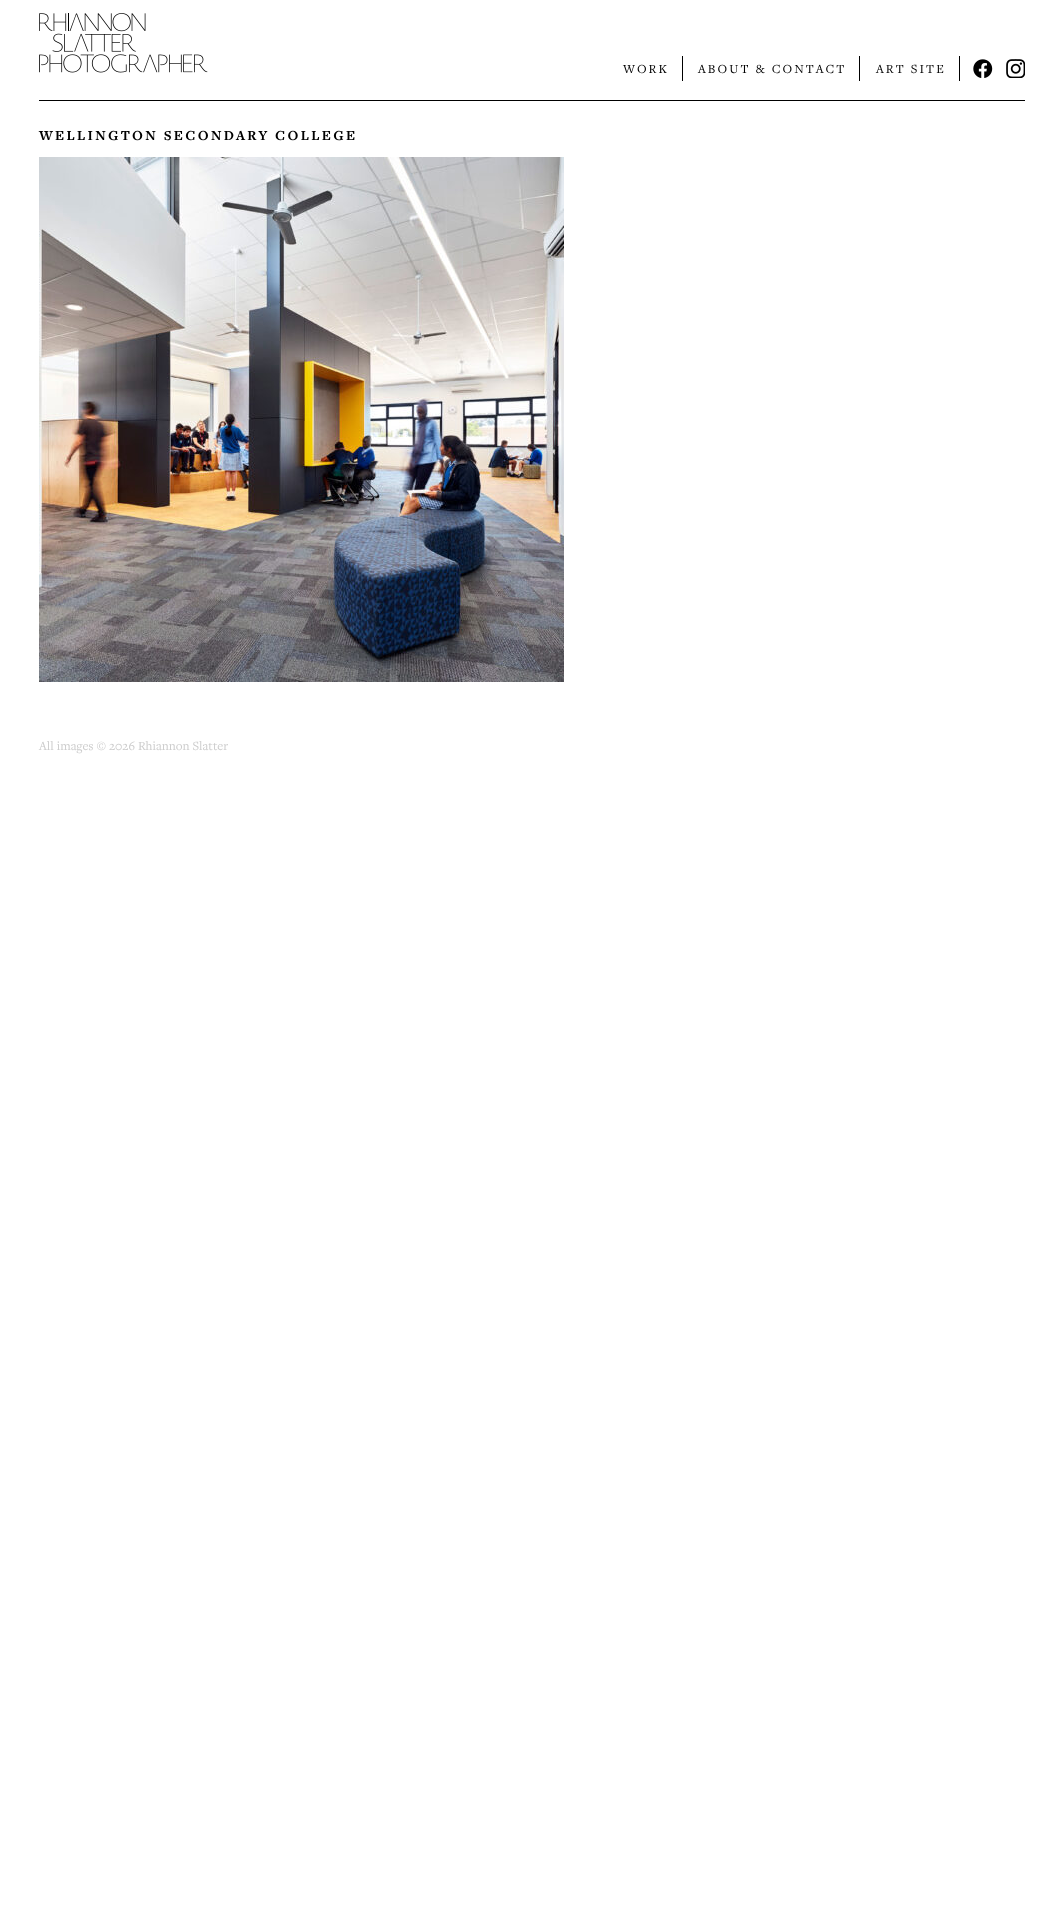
async function draw(canvas) {
	canvas.width = 1064;
	canvas.height = 1908;
	const c = canvas.getContext('2d');
	c.miterLimit = 4;
	c.fontKerning = 'normal';
	async function loadImage(src) {
		const img = new Image();
		img.src = src;
		await img.decode();
		return img;
	}

	c.fillStyle = '#fff';
	c.fillRect(0, 0, 1064, 1908);
	c.fillStyle = '#000';
	c.fillRect(39, 100, 986, 1);
	c.drawImage(await loadImage('img1.png'), 39, 13, 169, 60);
	c.fillRect(682, 56, 1, 25);
	c.letterSpacing = '2.1px';
	c.font = '13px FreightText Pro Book';
	c.fillText('WORK', 623, 73);
	c.fillRect(859, 56, 1, 25);
	c.fillText('ABOUT & CONTACT', 698, 73);
	c.fillRect(959, 56, 1, 25);
	c.fillText('ART SITE', 876, 73);
	c.drawImage(await loadImage('img2.png'), 973, 59, 20, 19);
	c.drawImage(await loadImage('img3.png'), 1006, 59, 19, 19);
	c.letterSpacing = '2.3px';
	c.font = 'bold 14.3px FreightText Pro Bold';
	c.fillText('WELLINGTON SECONDARY COLLEGE', 39, 140);
	c.drawImage(await loadImage('img4.png'), 39, 157, 525, 525);
	c.letterSpacing = '0px';
	c.font = '13px FreightText Pro Book';
	c.fillStyle = '#ccc';
	c.fillText('All images © 2026 Rhiannon Slatter', 39, 750);
}

draw(document.querySelector('canvas'));
